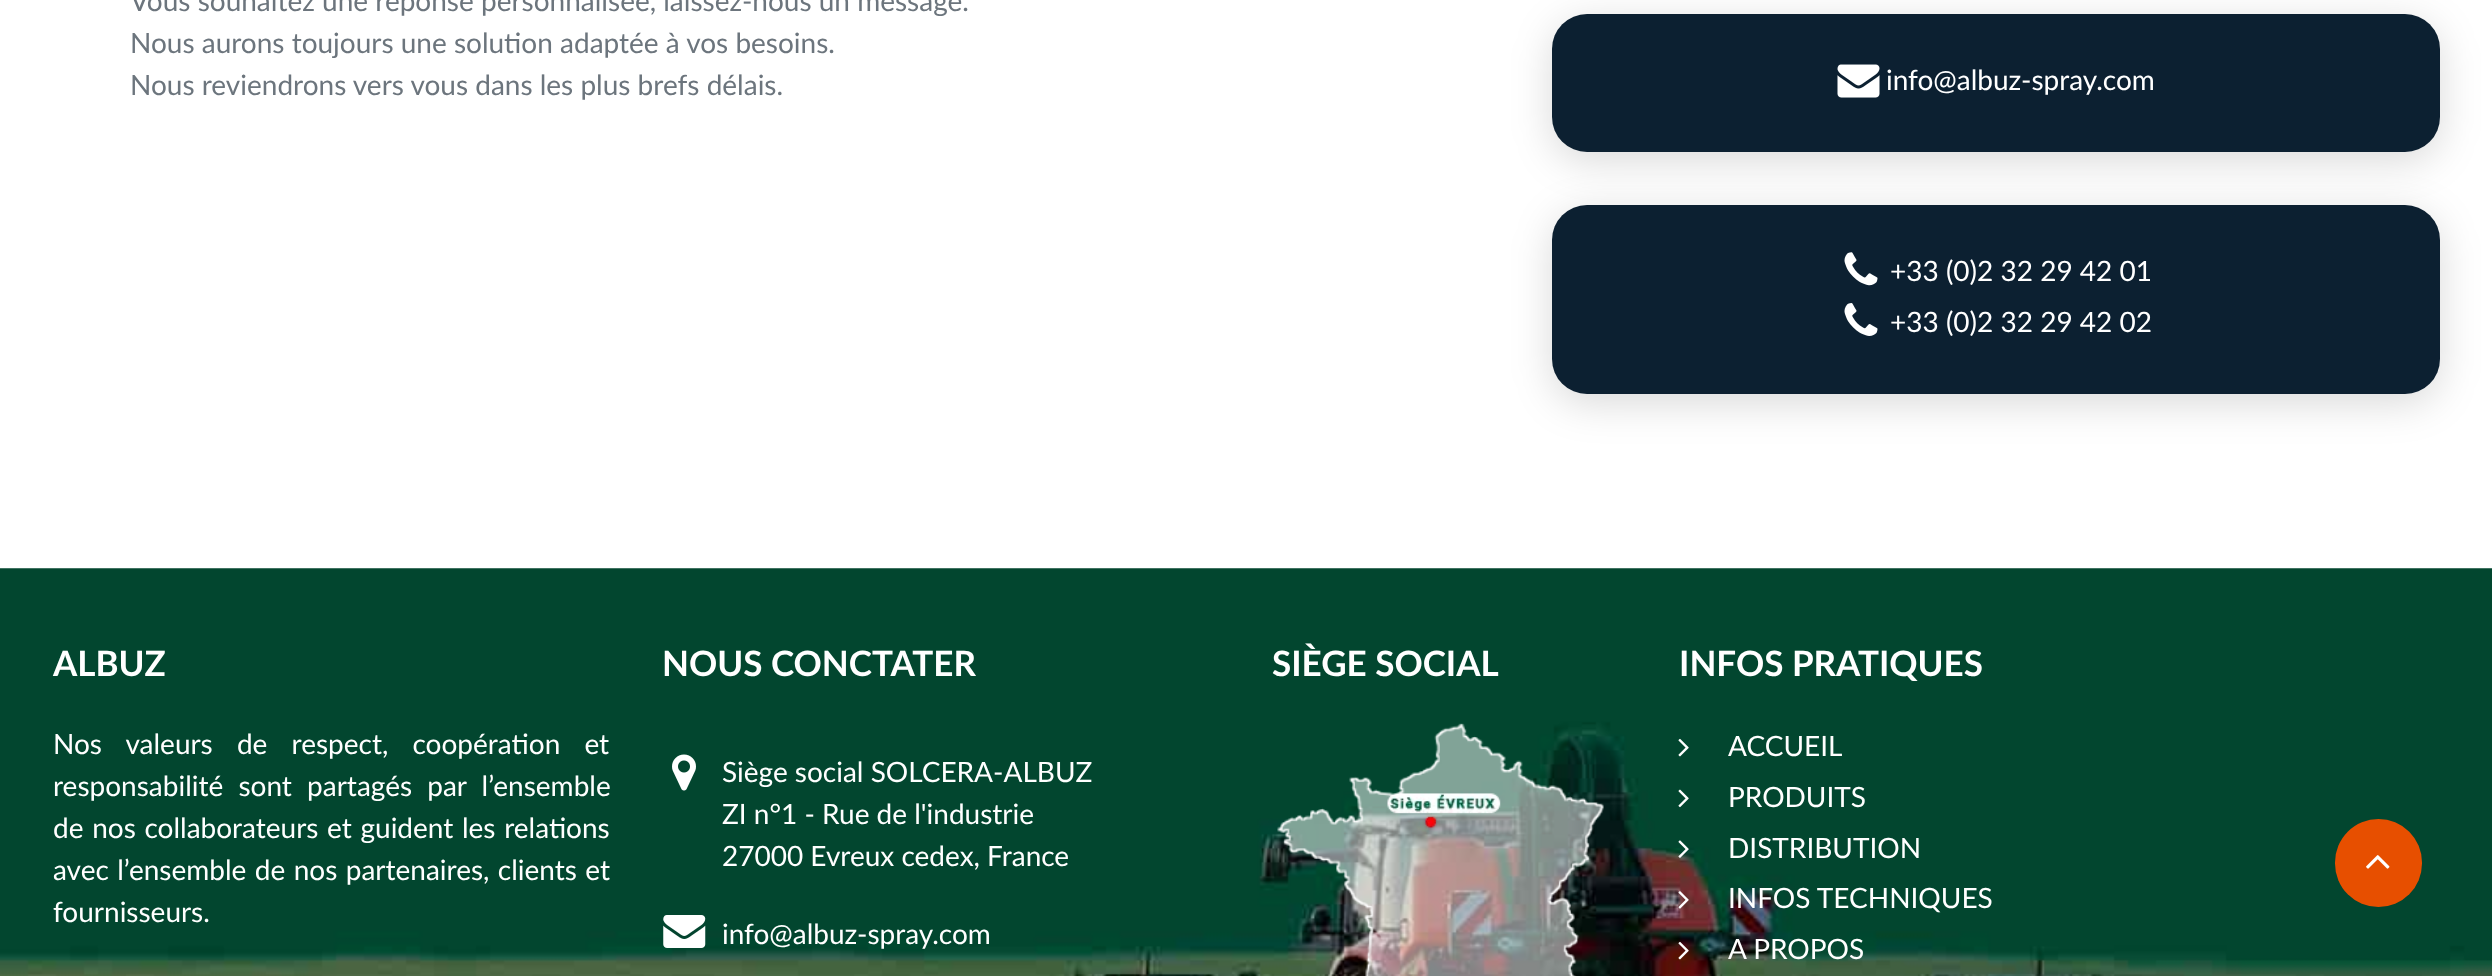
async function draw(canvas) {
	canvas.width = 2492;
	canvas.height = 976;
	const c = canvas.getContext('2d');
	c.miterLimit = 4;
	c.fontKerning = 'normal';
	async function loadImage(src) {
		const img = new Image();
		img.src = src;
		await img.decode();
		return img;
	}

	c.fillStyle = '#fff';
	c.fillRect(0, 0, 2492, 976);
	c.font = '28px Lato';
	c.fillStyle = '#6c757d';
	for (const [text, x, y] of [
		['Vous souhaitez une réponse personnalisée, laissez-nous un message.', 130, 11],
		['Nous aurons toujours une solution adaptée à vos besoins.', 130, 53],
		['Nous reviendrons vers vous dans les plus brefs délais.', 130, 95],
	]) {
		c.fillText(text, x, y);
	}
	c.fillStyle = '#00000026';
	c.filter = 'blur(20px)';
	c.beginPath();
	c.roundRect(1552, 23, 888, 138, 35);
	c.fill();
	c.filter = 'none';
	c.fillStyle = '#0c2031';
	c.beginPath();
	c.roundRect(1552, 14, 888, 138, 35);
	c.fill();
	c.drawImage(await loadImage('img1.png'), 1837, 64, 43, 34);
	c.fillStyle = '#fff';
	c.fillText('info@albuz-spray.com', 1886, 90);
	c.fillStyle = '#00000026';
	c.filter = 'blur(20px)';
	c.beginPath();
	c.roundRect(1552, 214, 888, 189, 35);
	c.fill();
	c.filter = 'none';
	c.fillStyle = '#0c2031';
	c.beginPath();
	c.roundRect(1552, 205, 888, 189, 35);
	c.fill();
	c.drawImage(await loadImage('img2.png'), 1844, 252, 34, 34);
	c.fillStyle = '#fff';
	c.fillText('+33 (0)2 32 29 42 01', 1890, 281);
	c.drawImage(await loadImage('img3.png'), 1844, 303, 34, 33);
	c.fillText('+33 (0)2 32 29 42 02', 1890, 332);
	c.drawImage(await loadImage('img4.png'), 0, 568, 2492, 408);
	c.font = 'bold 35px Lato';
	c.fillText('ALBUZ', 53, 676);
	c.wordSpacing = '17px';
	c.font = '28px Lato';
	c.fillText('Nos valeurs de respect, coopération et', 53, 754);
	c.wordSpacing = '8px';
	c.fillText('responsabilité sont partagés par l’ensemble', 53, 796);
	c.wordSpacing = '1.5px';
	c.fillText('de nos collaborateurs et guident les relations', 53, 838);
	c.wordSpacing = '1.25px';
	c.fillText('avec l’ensemble de nos partenaires, clients et', 53, 880);
	c.wordSpacing = '0px';
	c.fillText('fournisseurs.', 53, 922);
	c.font = 'bold 35px Lato';
	c.fillText('NOUS CONCTATER', 662, 676);
	c.drawImage(await loadImage('img5.png'), 672, 754, 24, 37);
	c.font = '28px Lato';
	for (const [text, x, y] of [
		['Siège social SOLCERA-ALBUZ', 722, 782],
		['ZI n°1 - Rue de l\'industrie', 722, 824],
		['27000 Evreux cedex, France', 722, 866],
	]) {
		c.fillText(text, x, y);
	}
	c.drawImage(await loadImage('img6.png'), 663, 915, 43, 33);
	c.fillText('info@albuz-spray.com', 722, 944);
	c.font = 'bold 35px Lato';
	c.fillText('SIÈGE SOCIAL', 1272, 676);
	c.drawImage(await loadImage('img7.png'), 1277, 723, 327, 253);
	c.fillText('INFOS PRATIQUES', 1679, 676);
	c.drawImage(await loadImage('img8.png'), 1678, 738, 11, 19);
	c.font = '28px Lato';
	c.fillText('ACCUEIL', 1728, 756);
	c.drawImage(await loadImage('img9.png'), 1678, 789, 11, 19);
	c.fillText('PRODUITS', 1728, 807);
	c.drawImage(await loadImage('img10.png'), 1678, 840, 11, 18);
	c.fillText('DISTRIBUTION', 1728, 858);
	c.drawImage(await loadImage('img11.png'), 1678, 891, 11, 18);
	c.fillText('INFOS TECHNIQUES', 1728, 908);
	c.drawImage(await loadImage('img12.png'), 1678, 941, 11, 19);
	c.fillText('A PROPOS', 1728, 959);
	c.fillStyle = '#e74f00';
	c.beginPath();
	c.roundRect(2335, 819, 87, 88, 43.5);
	c.fill();
	c.drawImage(await loadImage('img13.png'), 2366, 855, 24, 14);
}

draw(document.querySelector('canvas'));
